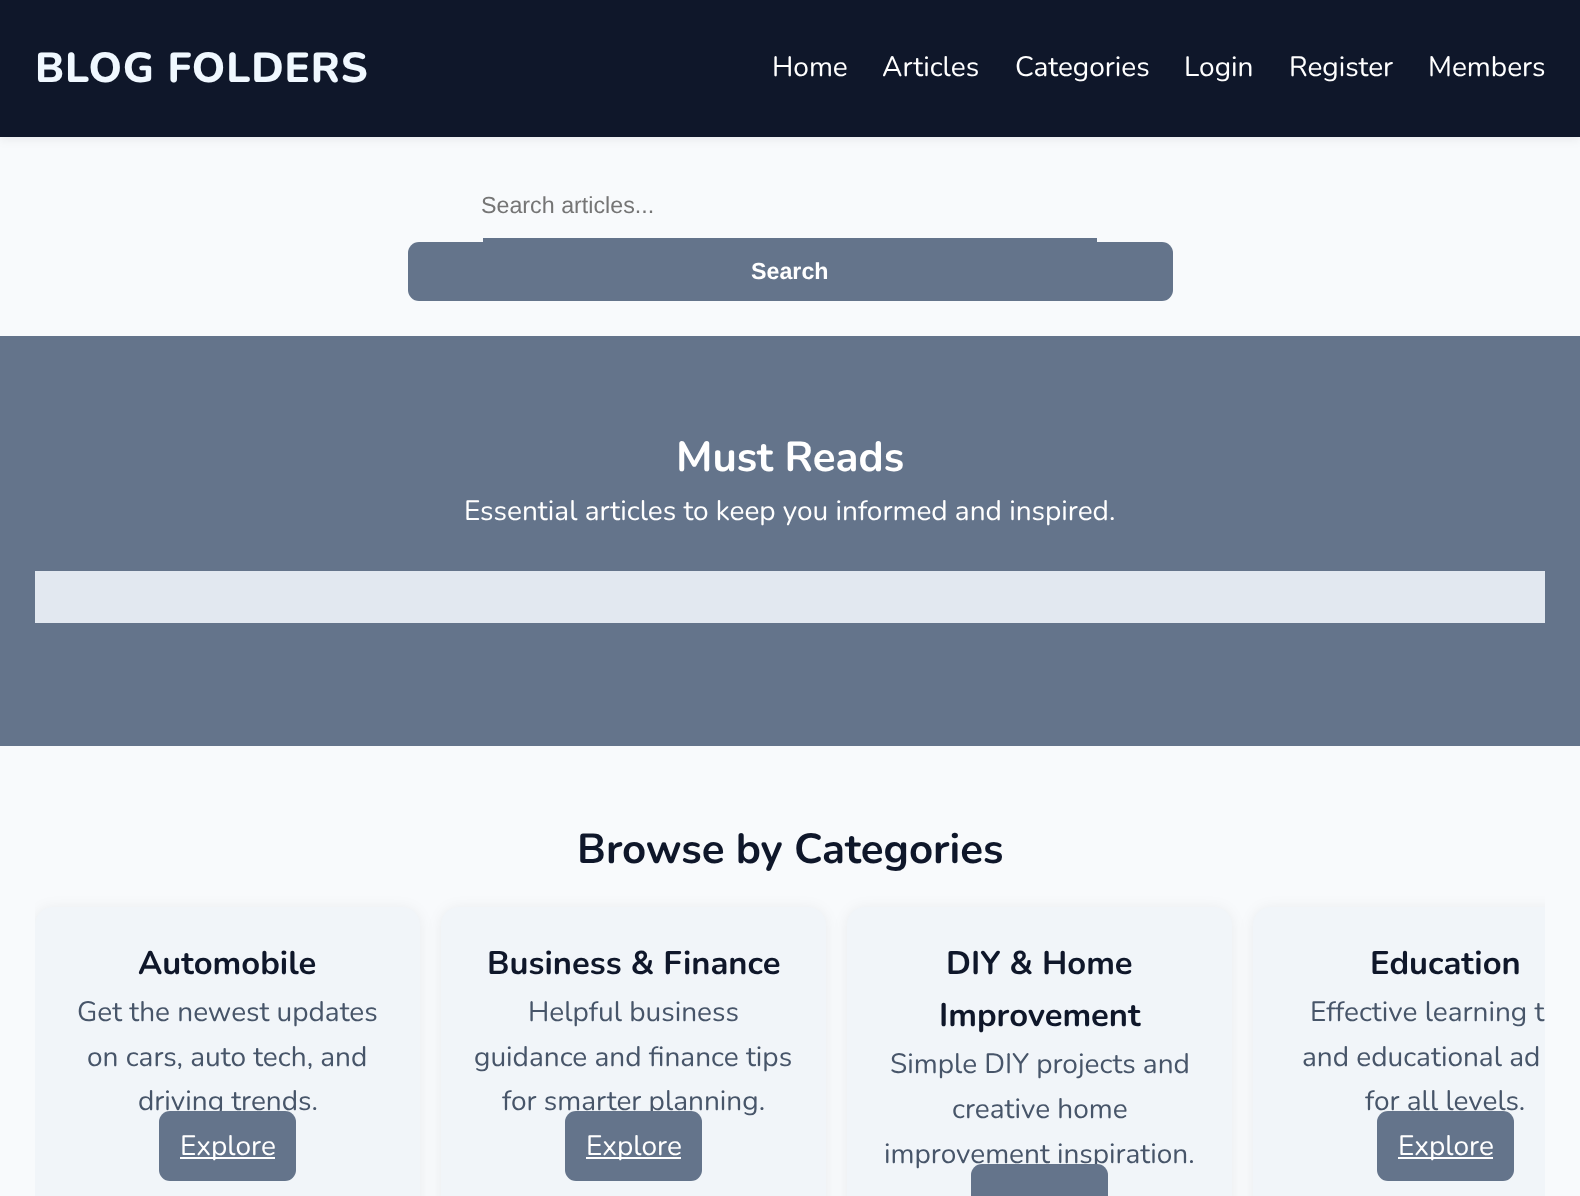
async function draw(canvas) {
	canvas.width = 1580;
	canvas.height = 1196;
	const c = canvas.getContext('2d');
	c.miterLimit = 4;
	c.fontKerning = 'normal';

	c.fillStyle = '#f8fafc';
	c.fillRect(0, 0, 1580, 1196);
	c.fillStyle = '#0000000f';
	c.filter = 'blur(5px)';
	c.beginPath();
	c.rect(0, 4, 1580, 136);
	c.fill();
	c.filter = 'none';
	c.fillStyle = '#0f172a';
	c.fillRect(0, 0, 1580, 137);
	c.letterSpacing = '0.9px';
	c.font = '800 42px Nunito';
	c.fillStyle = '#f0f8ff';
	c.fillText('BLOG FOLDERS', 35, 82);
	c.letterSpacing = '0px';
	c.font = '28px Nunito';
	c.fillStyle = '#fff';
	for (const [text, x, y] of [
		['Home', 772, 76],
		['Articles', 882, 76],
		['Categories', 1015, 76],
		['Login', 1184, 76],
		['Register', 1289, 76],
		['Members', 1428, 76],
	]) {
		c.fillText(text, x, y);
	}
	c.fillStyle = '#64748b';
	c.fillRect(483, 238, 614, 4);
	c.font = '23.25px Liberation Sans';
	c.fillStyle = '#757575';
	c.fillText('Search articles...', 481, 213);
	c.fillStyle = '#64748b';
	c.beginPath();
	c.roundRect(408, 242, 765, 59, 11);
	c.fill();
	c.font = 'bold 23.25px Liberation Sans';
	c.fillStyle = '#fff';
	c.fillText('Search', 751, 279);
	c.fillStyle = '#64748b';
	c.fillRect(0, 336, 1580, 410);
	c.font = 'bold 42px Nunito';
	c.fillStyle = '#fff';
	c.fillText('Must Reads', 676, 471);
	c.font = '28px Nunito';
	c.fillText('Essential articles to keep you informed and inspired.', 464, 520);
	c.fillStyle = '#e2e8f0';
	c.fillRect(35, 571, 1510, 52);
	c.font = 'bold 42px Nunito';
	c.fillStyle = '#0f172a';
	c.fillText('Browse by Categories', 577, 863);
	c.save();
	c.beginPath();
	c.rect(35, 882, 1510, 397);
	c.clip();
	c.fillStyle = '#0000000f';
	c.filter = 'blur(7px)';
	c.beginPath();
	c.roundRect(35, 908, 385, 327, 18);
	c.fill();
	c.filter = 'none';
	c.restore();
	c.fillStyle = '#f1f5f9';
	c.beginPath();
	c.roundRect(35, 907, 385, 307, 18);
	c.fill();
	c.font = 'bold 32.75px Nunito';
	c.fillStyle = '#0f172a';
	c.fillText('Automobile', 138, 974);
	c.font = '28px Nunito';
	c.fillStyle = '#475569';
	for (const [text, x, y] of [
		['Get the newest updates', 77, 1021],
		['on cars, auto tech, and', 87, 1066],
		['driving trends.', 138, 1110],
	]) {
		c.fillText(text, x, y);
	}
	c.fillStyle = '#64748b';
	c.beginPath();
	c.roundRect(159, 1111, 137, 70, 11);
	c.fill();
	c.fillStyle = '#fff';
	c.fillRect(180, 1157, 95, 2);
	c.fillText('Explore', 180, 1155);
	c.fillStyle = '#0000000f';
	c.filter = 'blur(7px)';
	c.beginPath();
	c.roundRect(441, 908, 385, 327, 18);
	c.fill();
	c.filter = 'none';
	c.fillStyle = '#f1f5f9';
	c.beginPath();
	c.roundRect(441, 907, 385, 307, 18);
	c.fill();
	c.font = 'bold 32.75px Nunito';
	c.fillStyle = '#0f172a';
	c.fillText('Business & Finance', 487, 974);
	c.font = '28px Nunito';
	c.fillStyle = '#475569';
	for (const [text, x, y] of [
		['Helpful business', 528, 1021],
		['guidance and finance tips', 474, 1066],
		['for smarter planning.', 502, 1110],
	]) {
		c.fillText(text, x, y);
	}
	c.fillStyle = '#64748b';
	c.beginPath();
	c.roundRect(565, 1111, 137, 70, 11);
	c.fill();
	c.fillStyle = '#fff';
	c.fillRect(586, 1157, 95, 2);
	c.fillText('Explore', 586, 1155);
	c.fillStyle = '#0000000f';
	c.filter = 'blur(7px)';
	c.beginPath();
	c.roundRect(847, 908, 385, 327, 18);
	c.fill();
	c.filter = 'none';
	c.fillStyle = '#f1f5f9';
	c.beginPath();
	c.roundRect(847, 907, 385, 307, 18);
	c.fill();
	c.font = 'bold 32.75px Nunito';
	c.fillStyle = '#0f172a';
	c.fillText('DIY & Home', 946, 974);
	c.fillText('Improvement', 939, 1026);
	c.font = '28px Nunito';
	c.fillStyle = '#475569';
	for (const [text, x, y] of [
		['Simple DIY projects and', 890, 1073],
		['creative home', 952, 1118],
		['improvement inspiration.', 884, 1163],
	]) {
		c.fillText(text, x, y);
	}
	c.fillStyle = '#64748b';
	c.beginPath();
	c.roundRect(971, 1164, 137, 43, 11);
	c.fill();
	c.save();
	c.beginPath();
	c.rect(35, 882, 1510, 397);
	c.clip();
	c.fillStyle = '#0000000f';
	c.filter = 'blur(7px)';
	c.beginPath();
	c.roundRect(1253, 908, 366, 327, 18);
	c.fill();
	c.filter = 'none';
	c.restore();
	c.fillStyle = '#f1f5f9';
	c.beginPath();
	c.moveTo(1271, 907);
	c.lineTo(1545, 907);
	c.lineTo(1545, 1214);
	c.lineTo(1271, 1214);
	c.bezierCurveTo(1261, 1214, 1253, 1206, 1253, 1196);
	c.lineTo(1253, 925);
	c.bezierCurveTo(1253, 915, 1261, 907, 1271, 907);
	c.closePath();
	c.fill();
	c.font = 'bold 32.75px Nunito';
	c.fillStyle = '#0f172a';
	c.fillText('Education', 1370, 974);
	c.font = '28px Nunito';
	c.fillStyle = '#475569';
	for (const [text, x, y] of [
		['Effective learning t', 1310, 1021],
		['and educational ad', 1302, 1066],
		['for all levels.', 1365, 1110],
	]) {
		c.fillText(text, x, y);
	}
	c.fillStyle = '#64748b';
	c.beginPath();
	c.roundRect(1377, 1111, 137, 70, 11);
	c.fill();
	c.fillStyle = '#fff';
	c.fillRect(1398, 1157, 95, 2);
	c.fillText('Explore', 1398, 1155);
}

draw(document.querySelector('canvas'));
